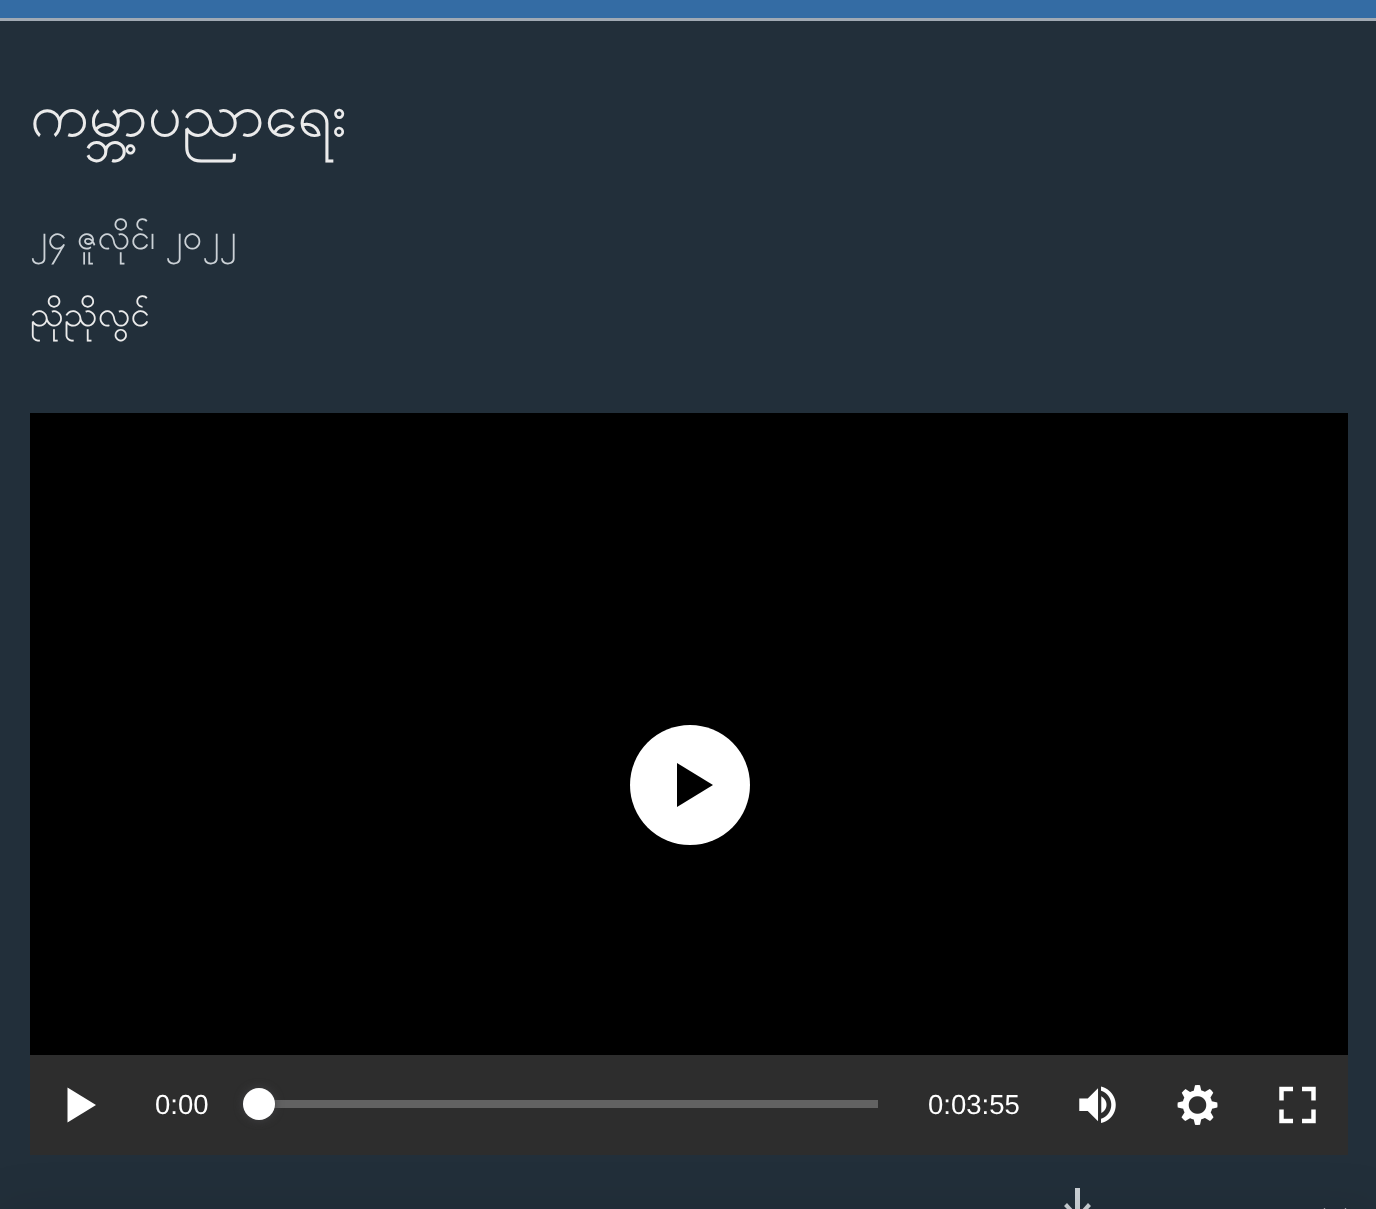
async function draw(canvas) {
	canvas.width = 1376;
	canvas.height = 1209;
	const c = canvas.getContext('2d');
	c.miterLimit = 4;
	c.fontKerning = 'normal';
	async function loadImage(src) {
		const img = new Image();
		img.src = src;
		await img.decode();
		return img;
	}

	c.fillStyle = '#346ca4';
	c.fillRect(0, 0, 1376, 1209);
	c.fillStyle = '#222f3a';
	c.fillRect(0, 21, 1376, 1188);
	c.fillStyle = '#a1aab4';
	c.fillRect(0, 18, 1376, 3);
	c.font = '60px Padauk';
	c.fillStyle = '#ebebeb';
	c.fillText('ကမ္ဘာ့ပညာရေး', 30, 136);
	c.wordSpacing = '-3px';
	c.font = '35px Padauk';
	c.fillStyle = '#cbd1d6';
	c.fillText('၂၄ ဇူလိုင်၊ ၂၀၂၂', 30, 249);
	c.wordSpacing = '0px';
	c.fillStyle = '#ebebeb';
	c.fillText('ညိုညိုလွင်', 30, 326);
	c.fillStyle = '#000';
	c.fillRect(30, 413, 1318, 642);
	c.fillStyle = '#fff';
	c.beginPath();
	c.arc(690, 785, 60, 0, 2 * Math.PI);
	c.fill();
	c.fillStyle = '#000';
	c.beginPath();
	c.moveTo(677, 807);
	c.lineTo(713, 785);
	c.lineTo(677, 763);
	c.closePath();
	c.fill();
	c.fillStyle = '#2d2d2d';
	c.fillRect(30, 1055, 1318, 100);
	c.fillStyle = '#fff';
	c.beginPath();
	c.moveTo(67.5, 1122.5);
	c.lineTo(96, 1105);
	c.lineTo(67.5, 1087.5);
	c.closePath();
	c.fill();
	c.font = '27.5px Liberation Sans';
	c.fillText('0:00', 155, 1114);
	c.fillStyle = '#626262';
	c.fillRect(274, 1100, 604, 8);
	c.fillStyle = '#414144';
	c.filter = 'blur(4px)';
	c.beginPath();
	c.roundRect(243, 1088, 32, 32, 16);
	c.fill();
	c.filter = 'none';
	c.fillStyle = '#fff';
	c.beginPath();
	c.arc(259, 1104, 16, 0, 2 * Math.PI);
	c.fill();
	c.fillText('0:03:55', 928, 1114);
	c.drawImage(await loadImage('img1.png'), 1079, 1086, 37, 37);
	c.drawImage(await loadImage('img2.png'), 1177, 1085, 41, 40);
	c.drawImage(await loadImage('img3.png'), 1279, 1086, 37, 38);
	c.fillStyle = '#cbd1d6';
	c.beginPath();
	c.moveTo(1098, 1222);
	c.lineTo(1098, 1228);
	c.lineTo(1058, 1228);
	c.lineTo(1058, 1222);
	c.closePath();
	c.moveTo(1091, 1206);
	c.lineTo(1088, 1203);
	c.lineTo(1080, 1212);
	c.lineTo(1080, 1188);
	c.lineTo(1075, 1188);
	c.lineTo(1075, 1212);
	c.lineTo(1067, 1203);
	c.lineTo(1064, 1206);
	c.lineTo(1078, 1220);
	c.closePath();
	c.fill();
	c.beginPath();
	c.moveTo(1322.5, 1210);
	c.lineTo(1335, 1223);
	c.lineTo(1347.5, 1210);
	c.lineTo(1345.5, 1208);
	c.lineTo(1335, 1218.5);
	c.lineTo(1324.5, 1208);
	c.closePath();
	c.fill();
	c.fillStyle = '#0000001a';
	c.filter = 'blur(25px)';
	c.beginPath();
	c.rect(0, 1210, 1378, 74);
	c.fill();
	c.filter = 'none';
}

draw(document.querySelector('canvas'));
